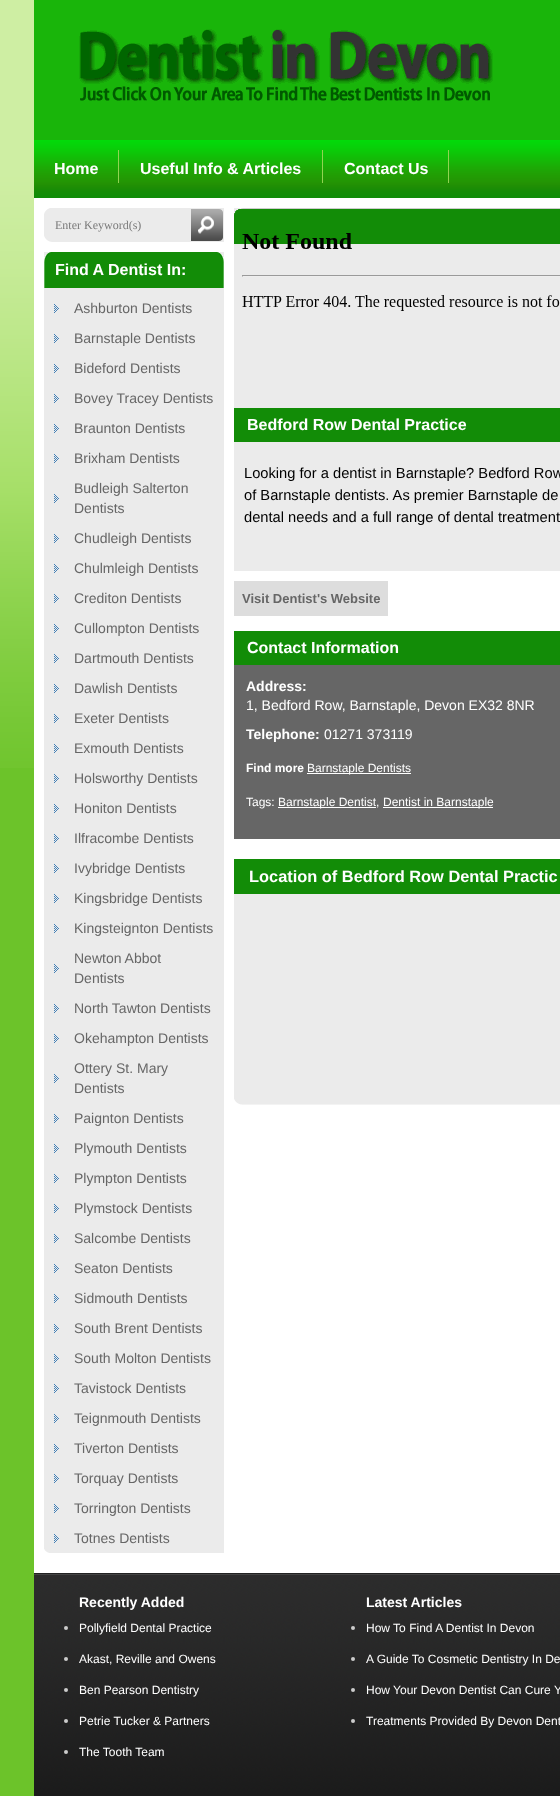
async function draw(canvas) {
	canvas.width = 560;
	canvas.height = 1796;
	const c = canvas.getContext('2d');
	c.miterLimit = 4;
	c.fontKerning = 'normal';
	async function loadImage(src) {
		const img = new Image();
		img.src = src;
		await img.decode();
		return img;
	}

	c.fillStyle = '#6cc32a';
	c.fillRect(0, 0, 560, 1796);
	c.drawImage(await loadImage('img1.png'), 0, 0, 34, 768);
	c.fillStyle = '#19b50a';
	c.fillRect(34, 0, 526, 140);
	c.drawImage(await loadImage('img2.png'), 79, 29, 414, 72);
	c.drawImage(await loadImage('img3.png'), 34, 140, 526, 58);
	c.fillStyle = '#91d452';
	c.fillRect(118, 150, 1, 33);
	c.font = 'bold 16px Liberation Sans';
	c.fillStyle = '#fff';
	c.fillText('Home', 54, 174);
	c.fillStyle = '#91d452';
	c.fillRect(322, 150, 1, 33);
	c.fillStyle = '#fff';
	c.fillText('Useful Info & Articles', 140, 174);
	c.fillStyle = '#91d452';
	c.fillRect(448, 150, 1, 33);
	c.fillStyle = '#fff';
	c.fillText('Contact Us', 344, 174);
	c.fillRect(34, 198, 526, 1375);
	c.drawImage(await loadImage('img4.png'), 44, 208, 180, 34);
	c.font = '12px Liberation Serif';
	c.fillStyle = '#7a7a7a';
	c.fillText('Enter Keyword(s)', 55, 229);
	c.drawImage(await loadImage('img5.png'), 191, 209, 32, 32);
	c.fillStyle = '#ebebeb';
	c.fillRect(44, 252, 180, 1301);
	c.drawImage(await loadImage('img6.png'), 44, 1549, 5, 4);
	c.drawImage(await loadImage('img7.png'), 44, 252, 180, 36);
	c.font = 'bold 16px Liberation Sans';
	c.fillStyle = '#fff';
	c.fillText('Find A Dentist In:', 55, 275);
	c.drawImage(await loadImage('img8.png'), 54, 304, 5, 9);
	c.font = '14px Liberation Sans';
	c.fillStyle = '#666';
	c.fillText('Ashburton Dentists', 74, 313);
	c.drawImage(await loadImage('img8.png'), 54, 334, 5, 9);
	c.fillText('Barnstaple Dentists', 74, 343);
	c.drawImage(await loadImage('img8.png'), 54, 364, 5, 9);
	c.fillText('Bideford Dentists', 74, 373);
	c.drawImage(await loadImage('img8.png'), 54, 394, 5, 9);
	c.fillText('Bovey Tracey Dentists', 74, 403);
	c.drawImage(await loadImage('img8.png'), 54, 424, 5, 9);
	c.fillText('Braunton Dentists', 74, 433);
	c.drawImage(await loadImage('img8.png'), 54, 454, 5, 9);
	c.fillText('Brixham Dentists', 74, 463);
	c.drawImage(await loadImage('img8.png'), 54, 494, 5, 9);
	c.fillText('Budleigh Salterton', 74, 493);
	c.fillText('Dentists', 74, 513);
	c.drawImage(await loadImage('img8.png'), 54, 534, 5, 9);
	c.fillText('Chudleigh Dentists', 74, 543);
	c.drawImage(await loadImage('img8.png'), 54, 564, 5, 9);
	c.fillText('Chulmleigh Dentists', 74, 573);
	c.drawImage(await loadImage('img8.png'), 54, 594, 5, 9);
	c.fillText('Crediton Dentists', 74, 603);
	c.drawImage(await loadImage('img8.png'), 54, 624, 5, 9);
	c.fillText('Cullompton Dentists', 74, 633);
	c.drawImage(await loadImage('img8.png'), 54, 654, 5, 9);
	c.fillText('Dartmouth Dentists', 74, 663);
	c.drawImage(await loadImage('img8.png'), 54, 684, 5, 9);
	c.fillText('Dawlish Dentists', 74, 693);
	c.drawImage(await loadImage('img8.png'), 54, 714, 5, 9);
	c.fillText('Exeter Dentists', 74, 723);
	c.drawImage(await loadImage('img8.png'), 54, 744, 5, 9);
	c.fillText('Exmouth Dentists', 74, 753);
	c.drawImage(await loadImage('img8.png'), 54, 774, 5, 9);
	c.fillText('Holsworthy Dentists', 74, 783);
	c.drawImage(await loadImage('img8.png'), 54, 804, 5, 9);
	c.fillText('Honiton Dentists', 74, 813);
	c.drawImage(await loadImage('img8.png'), 54, 834, 5, 9);
	c.fillText('Ilfracombe Dentists', 74, 843);
	c.drawImage(await loadImage('img8.png'), 54, 864, 5, 9);
	c.fillText('Ivybridge Dentists', 74, 873);
	c.drawImage(await loadImage('img8.png'), 54, 894, 5, 9);
	c.fillText('Kingsbridge Dentists', 74, 903);
	c.drawImage(await loadImage('img8.png'), 54, 924, 5, 9);
	c.fillText('Kingsteignton Dentists', 74, 933);
	c.drawImage(await loadImage('img8.png'), 54, 964, 5, 9);
	c.fillText('Newton Abbot', 74, 963);
	c.fillText('Dentists', 74, 983);
	c.drawImage(await loadImage('img8.png'), 54, 1004, 5, 9);
	c.fillText('North Tawton Dentists', 74, 1013);
	c.drawImage(await loadImage('img8.png'), 54, 1034, 5, 9);
	c.fillText('Okehampton Dentists', 74, 1043);
	c.drawImage(await loadImage('img8.png'), 54, 1074, 5, 9);
	c.fillText('Ottery St. Mary', 74, 1073);
	c.fillText('Dentists', 74, 1093);
	c.drawImage(await loadImage('img8.png'), 54, 1114, 5, 9);
	c.fillText('Paignton Dentists', 74, 1123);
	c.drawImage(await loadImage('img8.png'), 54, 1144, 5, 9);
	c.fillText('Plymouth Dentists', 74, 1153);
	c.drawImage(await loadImage('img8.png'), 54, 1174, 5, 9);
	c.fillText('Plympton Dentists', 74, 1183);
	c.drawImage(await loadImage('img8.png'), 54, 1204, 5, 9);
	c.fillText('Plymstock Dentists', 74, 1213);
	c.drawImage(await loadImage('img8.png'), 54, 1234, 5, 9);
	c.fillText('Salcombe Dentists', 74, 1243);
	c.drawImage(await loadImage('img8.png'), 54, 1264, 5, 9);
	c.fillText('Seaton Dentists', 74, 1273);
	c.drawImage(await loadImage('img8.png'), 54, 1294, 5, 9);
	c.fillText('Sidmouth Dentists', 74, 1303);
	c.drawImage(await loadImage('img8.png'), 54, 1324, 5, 9);
	c.fillText('South Brent Dentists', 74, 1333);
	c.drawImage(await loadImage('img8.png'), 54, 1354, 5, 9);
	c.fillText('South Molton Dentists', 74, 1363);
	c.drawImage(await loadImage('img8.png'), 54, 1384, 5, 9);
	c.fillText('Tavistock Dentists', 74, 1393);
	c.drawImage(await loadImage('img8.png'), 54, 1414, 5, 9);
	c.fillText('Teignmouth Dentists', 74, 1423);
	c.drawImage(await loadImage('img8.png'), 54, 1444, 5, 9);
	c.fillText('Tiverton Dentists', 74, 1453);
	c.drawImage(await loadImage('img8.png'), 54, 1474, 5, 9);
	c.fillText('Torquay Dentists', 74, 1483);
	c.drawImage(await loadImage('img8.png'), 54, 1504, 5, 9);
	c.fillText('Torrington Dentists', 74, 1513);
	c.drawImage(await loadImage('img8.png'), 54, 1534, 5, 9);
	c.fillText('Totnes Dentists', 74, 1543);
	c.fillStyle = '#ebebeb';
	c.fillRect(234, 208, 326, 891);
	c.drawImage(await loadImage('img9.png'), 234, 1099, 326, 15);
	c.drawImage(await loadImage('img10.png'), 234, 208, 326, 36);
	c.drawImage(await loadImage('img11.png'), 242, 233, 318, 78);
	c.fillStyle = '#128c07';
	c.fillRect(234, 408, 326, 34);
	c.font = 'bold 16px Liberation Sans';
	c.fillStyle = '#fff';
	c.fillText('Bedford Row Dental Practice', 247, 430);
	c.font = '14.7px Liberation Sans';
	c.fillStyle = '#000';
	for (const [text, x, y] of [
		['Looking for a dentist in Barnstaple? Bedford Row', 244, 478],
		['of Barnstaple dentists. As premier Barnstaple de', 244, 500],
		['dental needs and a full range of dental treatment', 244, 522],
	]) {
		c.fillText(text, x, y);
	}
	c.fillStyle = '#fff';
	c.fillRect(234, 571, 326, 60);
	c.fillStyle = '#ddd';
	c.fillRect(234, 581, 154, 35);
	c.font = 'bold 13px Liberation Sans';
	c.fillStyle = '#666';
	c.fillText('Visit Dentist\'s Website', 242, 603);
	for (const [x, y, w, h, color] of [
		[234, 665, 326, 174, '#666'],
		[234, 839, 326, 20, '#fff'],
		[234, 631, 326, 34, '#128c07'],
	]) {
		c.fillStyle = color;
		c.fillRect(x, y, w, h);
	}
	c.font = 'bold 16px Liberation Sans';
	c.fillStyle = '#fff';
	c.fillText('Contact Information', 247, 653);
	c.font = 'bold 14px Liberation Sans';
	c.fillText('Address:', 246, 691);
	c.font = '14px Liberation Sans';
	c.fillText('1, Bedford Row, Barnstaple, Devon EX32 8NR', 246, 710);
	c.font = 'bold 14px Liberation Sans';
	c.fillText('Telephone:', 246, 739);
	c.font = '14px Liberation Sans';
	c.fillText('01271 373119', 324, 739);
	c.font = 'bold 12px Liberation Sans';
	c.fillText('Find more', 246, 772);
	c.fillRect(307, 773, 104, 1);
	c.font = '12px Liberation Sans';
	c.fillText('Barnstaple Dentists', 307, 772);
	c.fillText('Tags:', 246, 806);
	c.fillRect(278, 807, 98, 1);
	c.fillText('Barnstaple Dentist,', 278, 806);
	c.fillRect(383, 807, 110, 1);
	c.fillText('Dentist in Barnstaple', 383, 806);
	c.fillStyle = '#128c07';
	c.fillRect(234, 859, 326, 35);
	c.font = 'bold 16.4px Liberation Sans';
	c.fillStyle = '#fff';
	c.fillText('Location of Bedford Row Dental Practic', 249, 882);
	c.drawImage(await loadImage('img12.png'), 34, 1573, 526, 223);
	c.font = 'bold 14px Liberation Sans';
	c.fillText('Recently Added', 79, 1607);
	c.fillStyle = '#ccc';
	c.beginPath();
	c.arc(66, 1628, 2, 0, 2 * Math.PI);
	c.fill();
	c.font = '12px Liberation Sans';
	c.fillStyle = '#fff';
	c.fillText('Pollyfield Dental Practice', 79, 1632);
	c.fillStyle = '#ccc';
	c.beginPath();
	c.arc(66, 1659, 2, 0, 2 * Math.PI);
	c.fill();
	c.fillStyle = '#fff';
	c.fillText('Akast, Reville and Owens', 79, 1663);
	c.fillStyle = '#ccc';
	c.beginPath();
	c.arc(66, 1690, 2, 0, 2 * Math.PI);
	c.fill();
	c.fillStyle = '#fff';
	c.fillText('Ben Pearson Dentistry', 79, 1694);
	c.fillStyle = '#ccc';
	c.beginPath();
	c.arc(66, 1721, 2, 0, 2 * Math.PI);
	c.fill();
	c.fillStyle = '#fff';
	c.fillText('Petrie Tucker & Partners', 79, 1725);
	c.fillStyle = '#ccc';
	c.beginPath();
	c.arc(66, 1752, 2, 0, 2 * Math.PI);
	c.fill();
	c.fillStyle = '#fff';
	c.fillText('The Tooth Team', 79, 1756);
	c.font = 'bold 14px Liberation Sans';
	c.fillText('Latest Articles', 366, 1607);
	c.fillStyle = '#ccc';
	c.beginPath();
	c.arc(353, 1628, 2, 0, 2 * Math.PI);
	c.fill();
	c.font = '12px Liberation Sans';
	c.fillStyle = '#fff';
	c.fillText('How To Find A Dentist In Devon', 366, 1632);
	c.fillStyle = '#ccc';
	c.beginPath();
	c.arc(353, 1659, 2, 0, 2 * Math.PI);
	c.fill();
	c.fillStyle = '#fff';
	c.fillText('A Guide To Cosmetic Dentistry In De', 366, 1663);
	c.fillStyle = '#ccc';
	c.beginPath();
	c.arc(353, 1690, 2, 0, 2 * Math.PI);
	c.fill();
	c.fillStyle = '#fff';
	c.fillText('How Your Devon Dentist Can Cure Y', 366, 1694);
	c.fillStyle = '#ccc';
	c.beginPath();
	c.arc(353, 1721, 2, 0, 2 * Math.PI);
	c.fill();
	c.fillStyle = '#fff';
	c.fillText('Treatments Provided By Devon Dent', 366, 1725);
}

draw(document.querySelector('canvas'));
